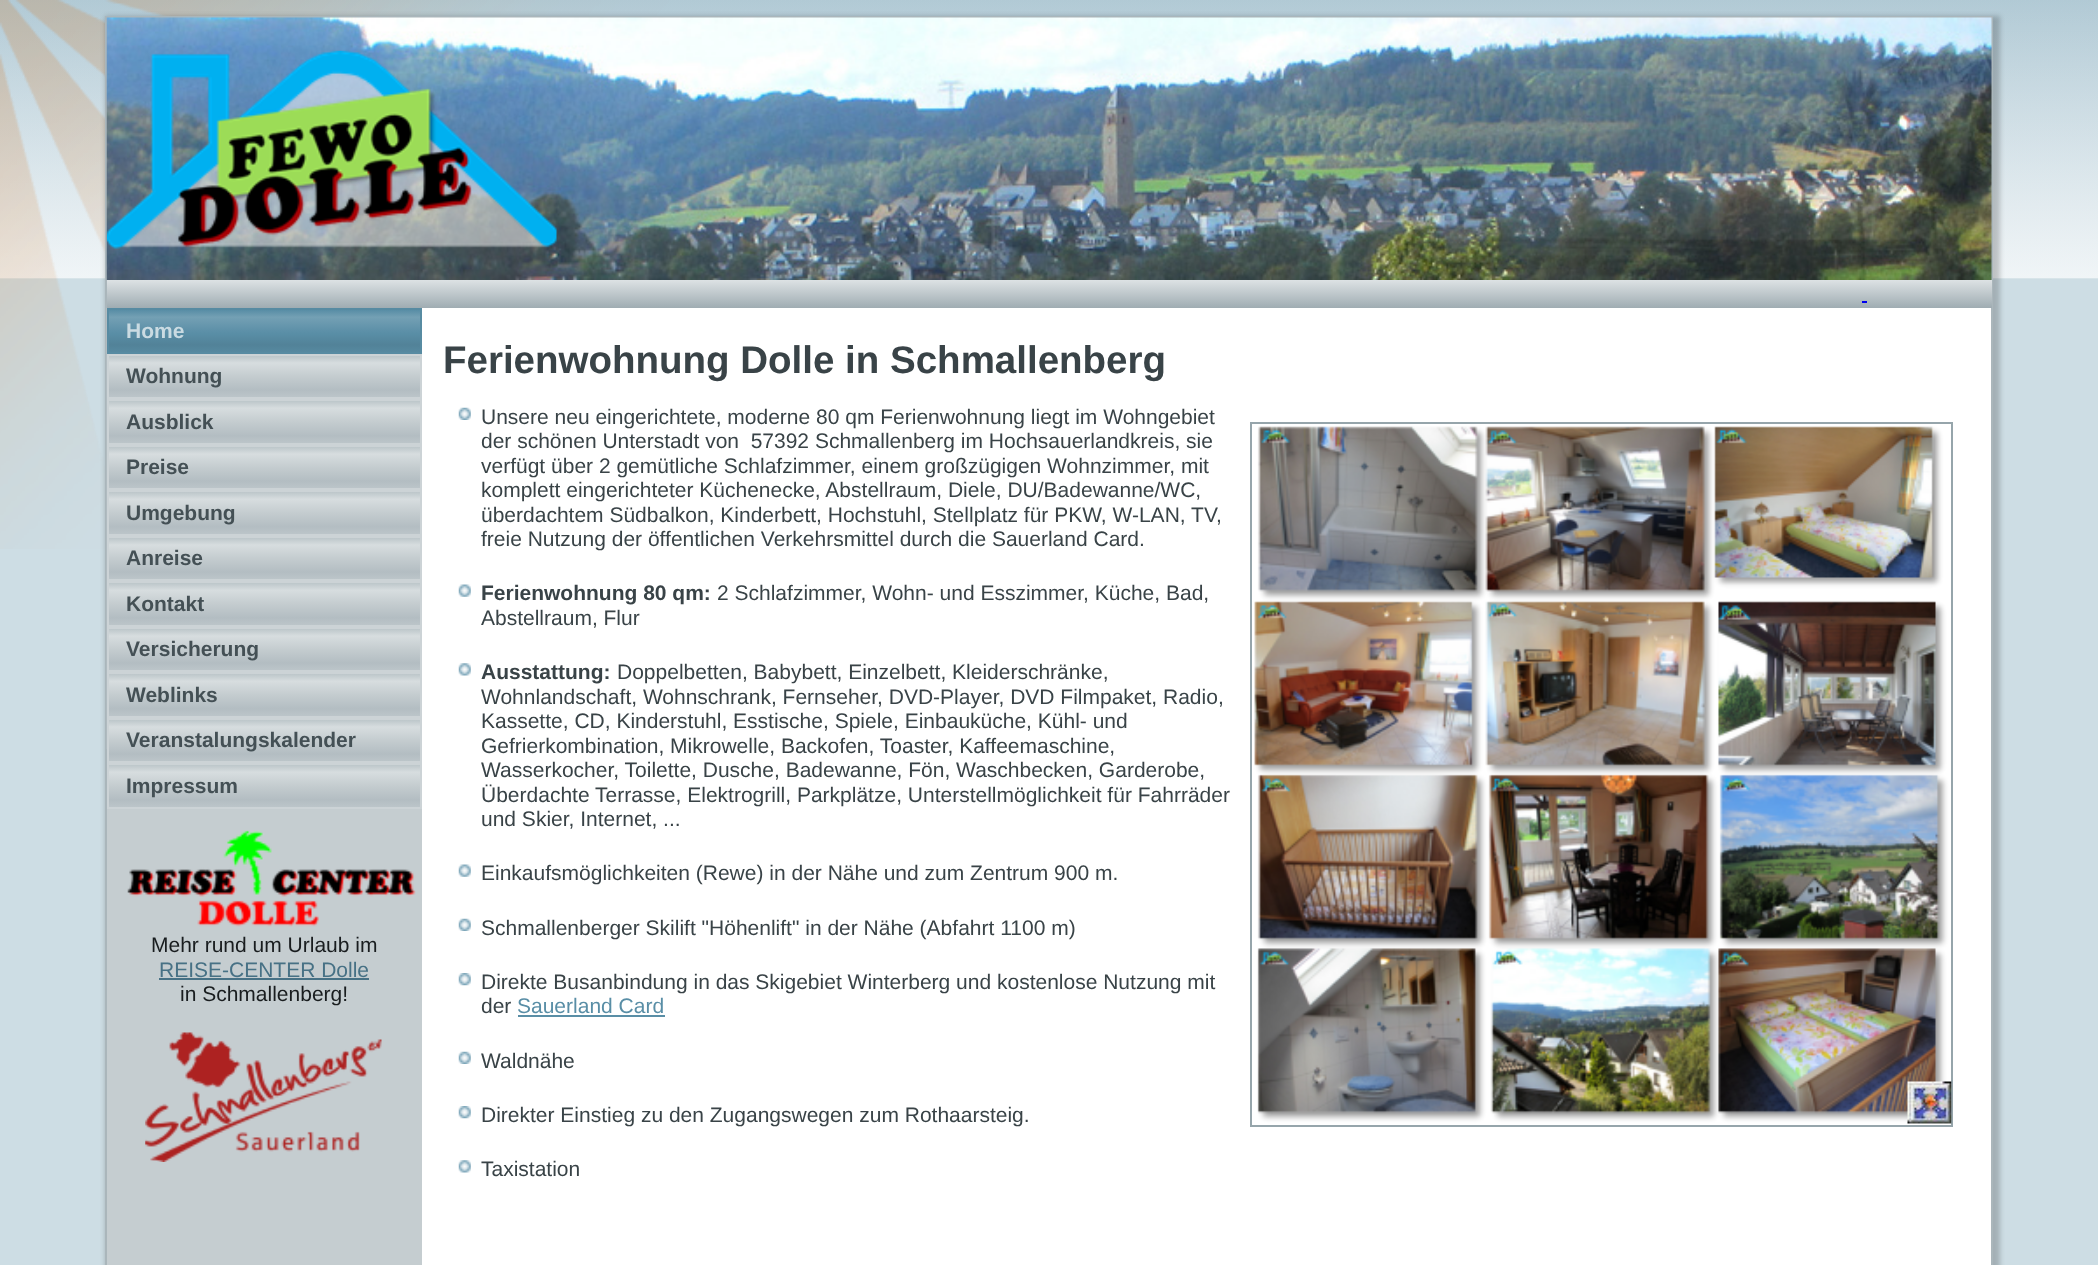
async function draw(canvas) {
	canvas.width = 2098;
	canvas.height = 1265;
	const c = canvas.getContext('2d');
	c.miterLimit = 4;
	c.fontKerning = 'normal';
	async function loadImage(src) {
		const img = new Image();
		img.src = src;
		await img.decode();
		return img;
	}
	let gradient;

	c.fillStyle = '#cddde4';
	c.fillRect(0, 0, 2098, 1265);
	c.drawImage(await loadImage('img1.png'), 0, 0, 2098, 549);
	c.fillStyle = '#00000033';
	c.filter = 'blur(2.5px)';
	c.beginPath();
	c.rect(105, 16, 1895, 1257);
	c.fill();
	c.filter = 'none';
	c.fillStyle = '#fff';
	c.fillRect(422, 308, 1569, 957);
	c.strokeStyle = '#aab6bb';
	c.lineWidth = 2;
	c.strokeRect(106, 17, 1886, 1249);
	c.drawImage(await loadImage('img2.png'), 106, 17, 1886, 263);
	c.drawImage(await loadImage('img3.png'), 106, 50, 451, 199);
	gradient = c.createLinearGradient(1049, 280, 1049, 308);
	gradient.addColorStop(0, '#dde2e4');
	gradient.addColorStop(1, '#9facb2');
	c.fillStyle = gradient;
	c.fillRect(107, 280, 1885, 28);
	c.fillStyle = '#00e';
	c.fillRect(1862, 301, 5, 2);
	c.fillStyle = '#c5cdd0';
	c.fillRect(107, 809, 315, 456);
	c.drawImage(await loadImage('img4.png'), 106, 308, 1, 441);
	gradient = c.createLinearGradient(264, 308, 264, 354);
	gradient.addColorStop(0, '#54859c');
	gradient.addColorStop(0.05, '#598ea6');
	gradient.addColorStop(0.2, '#74a0b4');
	gradient.addColorStop(0.5, '#5d90a8');
	gradient.addColorStop(0.56, '#598ea6');
	gradient.addColorStop(0.8, '#528298');
	gradient.addColorStop(1, '#578ba2');
	c.fillStyle = gradient;
	c.fillRect(109, 310, 311, 42);
	c.strokeStyle = '#578ba2';
	c.strokeRect(108, 309, 313, 44);
	c.font = 'bold 21px Liberation Sans';
	c.fillStyle = '#cadbe2';
	c.fillText('Home', 126, 338);
	gradient = c.createLinearGradient(264, 354, 264, 399);
	gradient.addColorStop(0, '#b5c0c4');
	gradient.addColorStop(0.2, '#d7dddf');
	gradient.addColorStop(0.5, '#c4cccf');
	gradient.addColorStop(0.8, '#b3bdc2');
	gradient.addColorStop(1, '#bec7cb');
	c.fillStyle = gradient;
	c.fillRect(109, 356, 311, 41);
	c.strokeStyle = '#ccd3d6';
	c.strokeRect(108, 355, 313, 43);
	c.fillStyle = '#445055';
	c.fillText('Wohnung', 126, 383);
	gradient = c.createLinearGradient(264, 399, 264, 445);
	gradient.addColorStop(0, '#b5c0c4');
	gradient.addColorStop(0.2, '#d7dddf');
	gradient.addColorStop(0.5, '#c4cccf');
	gradient.addColorStop(0.8, '#b3bdc2');
	gradient.addColorStop(1, '#bec7cb');
	c.fillStyle = gradient;
	c.fillRect(109, 401, 311, 42);
	c.strokeRect(108, 400, 313, 44);
	c.fillStyle = '#445055';
	c.fillText('Ausblick', 126, 429);
	gradient = c.createLinearGradient(264, 445, 264, 490);
	gradient.addColorStop(0, '#b5c0c4');
	gradient.addColorStop(0.2, '#d7dddf');
	gradient.addColorStop(0.5, '#c4cccf');
	gradient.addColorStop(0.8, '#b3bdc2');
	gradient.addColorStop(1, '#bec7cb');
	c.fillStyle = gradient;
	c.fillRect(109, 447, 311, 41);
	c.strokeRect(108, 446, 313, 43);
	c.fillStyle = '#445055';
	c.fillText('Preise', 126, 474);
	gradient = c.createLinearGradient(264, 490, 264, 536);
	gradient.addColorStop(0, '#b5c0c4');
	gradient.addColorStop(0.2, '#d7dddf');
	gradient.addColorStop(0.5, '#c4cccf');
	gradient.addColorStop(0.8, '#b3bdc2');
	gradient.addColorStop(1, '#bec7cb');
	c.fillStyle = gradient;
	c.fillRect(109, 492, 311, 42);
	c.strokeRect(108, 491, 313, 44);
	c.fillStyle = '#445055';
	c.fillText('Umgebung', 126, 520);
	gradient = c.createLinearGradient(264, 536, 264, 581);
	gradient.addColorStop(0, '#b5c0c4');
	gradient.addColorStop(0.2, '#d7dddf');
	gradient.addColorStop(0.5, '#c4cccf');
	gradient.addColorStop(0.8, '#b3bdc2');
	gradient.addColorStop(1, '#bec7cb');
	c.fillStyle = gradient;
	c.fillRect(109, 538, 311, 41);
	c.strokeRect(108, 537, 313, 43);
	c.fillStyle = '#445055';
	c.fillText('Anreise', 126, 565);
	gradient = c.createLinearGradient(264, 581, 264, 627);
	gradient.addColorStop(0, '#b5c0c4');
	gradient.addColorStop(0.2, '#d7dddf');
	gradient.addColorStop(0.5, '#c4cccf');
	gradient.addColorStop(0.8, '#b3bdc2');
	gradient.addColorStop(1, '#bec7cb');
	c.fillStyle = gradient;
	c.fillRect(109, 583, 311, 42);
	c.strokeRect(108, 582, 313, 44);
	c.fillStyle = '#445055';
	c.fillText('Kontakt', 126, 611);
	gradient = c.createLinearGradient(264, 627, 264, 672);
	gradient.addColorStop(0, '#b5c0c4');
	gradient.addColorStop(0.2, '#d7dddf');
	gradient.addColorStop(0.5, '#c4cccf');
	gradient.addColorStop(0.8, '#b3bdc2');
	gradient.addColorStop(1, '#bec7cb');
	c.fillStyle = gradient;
	c.fillRect(109, 629, 311, 41);
	c.strokeRect(108, 628, 313, 43);
	c.fillStyle = '#445055';
	c.fillText('Versicherung', 126, 656);
	gradient = c.createLinearGradient(264, 672, 264, 718);
	gradient.addColorStop(0, '#b5c0c4');
	gradient.addColorStop(0.2, '#d7dddf');
	gradient.addColorStop(0.5, '#c4cccf');
	gradient.addColorStop(0.8, '#b3bdc2');
	gradient.addColorStop(1, '#bec7cb');
	c.fillStyle = gradient;
	c.fillRect(109, 674, 311, 42);
	c.strokeRect(108, 673, 313, 44);
	c.fillStyle = '#445055';
	c.fillText('Weblinks', 126, 702);
	gradient = c.createLinearGradient(264, 718, 264, 763);
	gradient.addColorStop(0, '#b5c0c4');
	gradient.addColorStop(0.2, '#d7dddf');
	gradient.addColorStop(0.5, '#c4cccf');
	gradient.addColorStop(0.8, '#b3bdc2');
	gradient.addColorStop(1, '#bec7cb');
	c.fillStyle = gradient;
	c.fillRect(109, 720, 311, 41);
	c.strokeRect(108, 719, 313, 43);
	c.fillStyle = '#445055';
	c.fillText('Veranstalungskalender', 126, 747);
	gradient = c.createLinearGradient(264, 763, 264, 809);
	gradient.addColorStop(0, '#b5c0c4');
	gradient.addColorStop(0.2, '#d7dddf');
	gradient.addColorStop(0.5, '#c4cccf');
	gradient.addColorStop(0.8, '#b3bdc2');
	gradient.addColorStop(1, '#bec7cb');
	c.fillStyle = gradient;
	c.fillRect(109, 765, 311, 42);
	c.strokeRect(108, 764, 313, 44);
	c.fillStyle = '#445055';
	c.fillText('Impressum', 126, 793);
	c.drawImage(await loadImage('img5.png'), 127, 830, 289, 97);
	c.font = '21px Liberation Sans';
	c.fillStyle = '#191d1f';
	c.fillText('Mehr rund um Urlaub im', 151, 952);
	c.fillStyle = '#477185';
	c.fillText('REISE-CENTER Dolle', 159, 977);
	c.fillRect(159, 978, 210, 2);
	c.fillStyle = '#191d1f';
	c.fillText('in Schmallenberg!', 180, 1001);
	c.drawImage(await loadImage('img6.png'), 145, 1032, 237, 130);
	c.font = 'bold 38.5px Liberation Sans';
	c.fillStyle = '#394347';
	c.fillText('Ferienwohnung Dolle in Schmallenberg', 443, 373);
	c.drawImage(await loadImage('img7.png'), 458, 407, 13, 13);
	c.font = '21px Liberation Sans';
	for (const [text, x, y] of [
		['Unsere neu eingerichtete, moderne 80 qm Ferienwohnung liegt im Wohngebiet', 481, 424],
		['der schönen Unterstadt von  57392 Schmallenberg im Hochsauerlandkreis, sie', 481, 448],
		['verfügt über 2 gemütliche Schlafzimmer, einem großzügigen Wohnzimmer, mit', 481, 473],
		['komplett eingerichteter Küchenecke, Abstellraum, Diele, DU/Badewanne/WC,', 481, 497],
		['überdachtem Südbalkon, Kinderbett, Hochstuhl, Stellplatz für PKW, W-LAN, TV,', 481, 522],
		['freie Nutzung der öffentlichen Verkehrsmittel durch die Sauerland Card.', 481, 546],
	]) {
		c.fillText(text, x, y);
	}
	c.drawImage(await loadImage('img8.png'), 458, 584, 13, 13);
	c.font = 'bold 21px Liberation Sans';
	c.fillText('Ferienwohnung 80 qm:', 481, 600);
	c.font = '21px Liberation Sans';
	c.fillText('2 Schlafzimmer, Wohn- und Esszimmer, Küche, Bad,', 717, 600);
	c.fillText('Abstellraum, Flur', 481, 625);
	c.drawImage(await loadImage('img9.png'), 458, 663, 13, 13);
	c.font = 'bold 21px Liberation Sans';
	c.fillText('Ausstattung:', 481, 679);
	c.font = '21px Liberation Sans';
	for (const [text, x, y] of [
		['Doppelbetten, Babybett, Einzelbett, Kleiderschränke,', 617, 679],
		['Wohnlandschaft, Wohnschrank, Fernseher, DVD-Player, DVD Filmpaket, Radio,', 481, 704],
		['Kassette, CD, Kinderstuhl, Esstische, Spiele, Einbauküche, Kühl- und', 481, 728],
		['Gefrierkombination, Mikrowelle, Backofen, Toaster, Kaffeemaschine,', 481, 753],
		['Wasserkocher, Toilette, Dusche, Badewanne, Fön, Waschbecken, Garderobe,', 481, 777],
		['Überdachte Terrasse, Elektrogrill, Parkplätze, Unterstellmöglichkeit für Fahrräder', 481, 802],
		['und Skier, Internet, ...', 481, 826],
	]) {
		c.fillText(text, x, y);
	}
	c.drawImage(await loadImage('img8.png'), 458, 864, 13, 13);
	c.fillText('Einkaufsmöglichkeiten (Rewe) in der Nähe und zum Zentrum 900 m.', 481, 880);
	c.drawImage(await loadImage('img7.png'), 458, 918, 13, 13);
	c.fillText('Schmallenberger Skilift "Höhenlift" in der Nähe (Abfahrt 1100 m)', 481, 935);
	c.drawImage(await loadImage('img10.png'), 458, 973, 13, 13);
	c.fillText('Direkte Busanbindung in das Skigebiet Winterberg und kostenlose Nutzung mit', 481, 989);
	c.fillText('der', 481, 1013);
	c.fillStyle = '#598ea6';
	c.fillText('Sauerland Card', 517, 1013);
	c.fillRect(518, 1015, 147, 2);
	c.drawImage(await loadImage('img7.png'), 458, 1051, 13, 13);
	c.fillStyle = '#394347';
	c.fillText('Waldnähe', 481, 1068);
	c.drawImage(await loadImage('img10.png'), 458, 1106, 13, 13);
	c.fillText('Direkter Einstieg zu den Zugangswegen zum Rothaarsteig.', 481, 1122);
	c.drawImage(await loadImage('img9.png'), 458, 1160, 13, 13);
	c.fillText('Taxistation', 481, 1176);
	c.strokeStyle = '#96a5ab';
	c.strokeRect(1251, 423, 701, 703);
	c.drawImage(await loadImage('img11.png'), 1254, 426, 698, 698);
}

draw(document.querySelector('canvas'));
